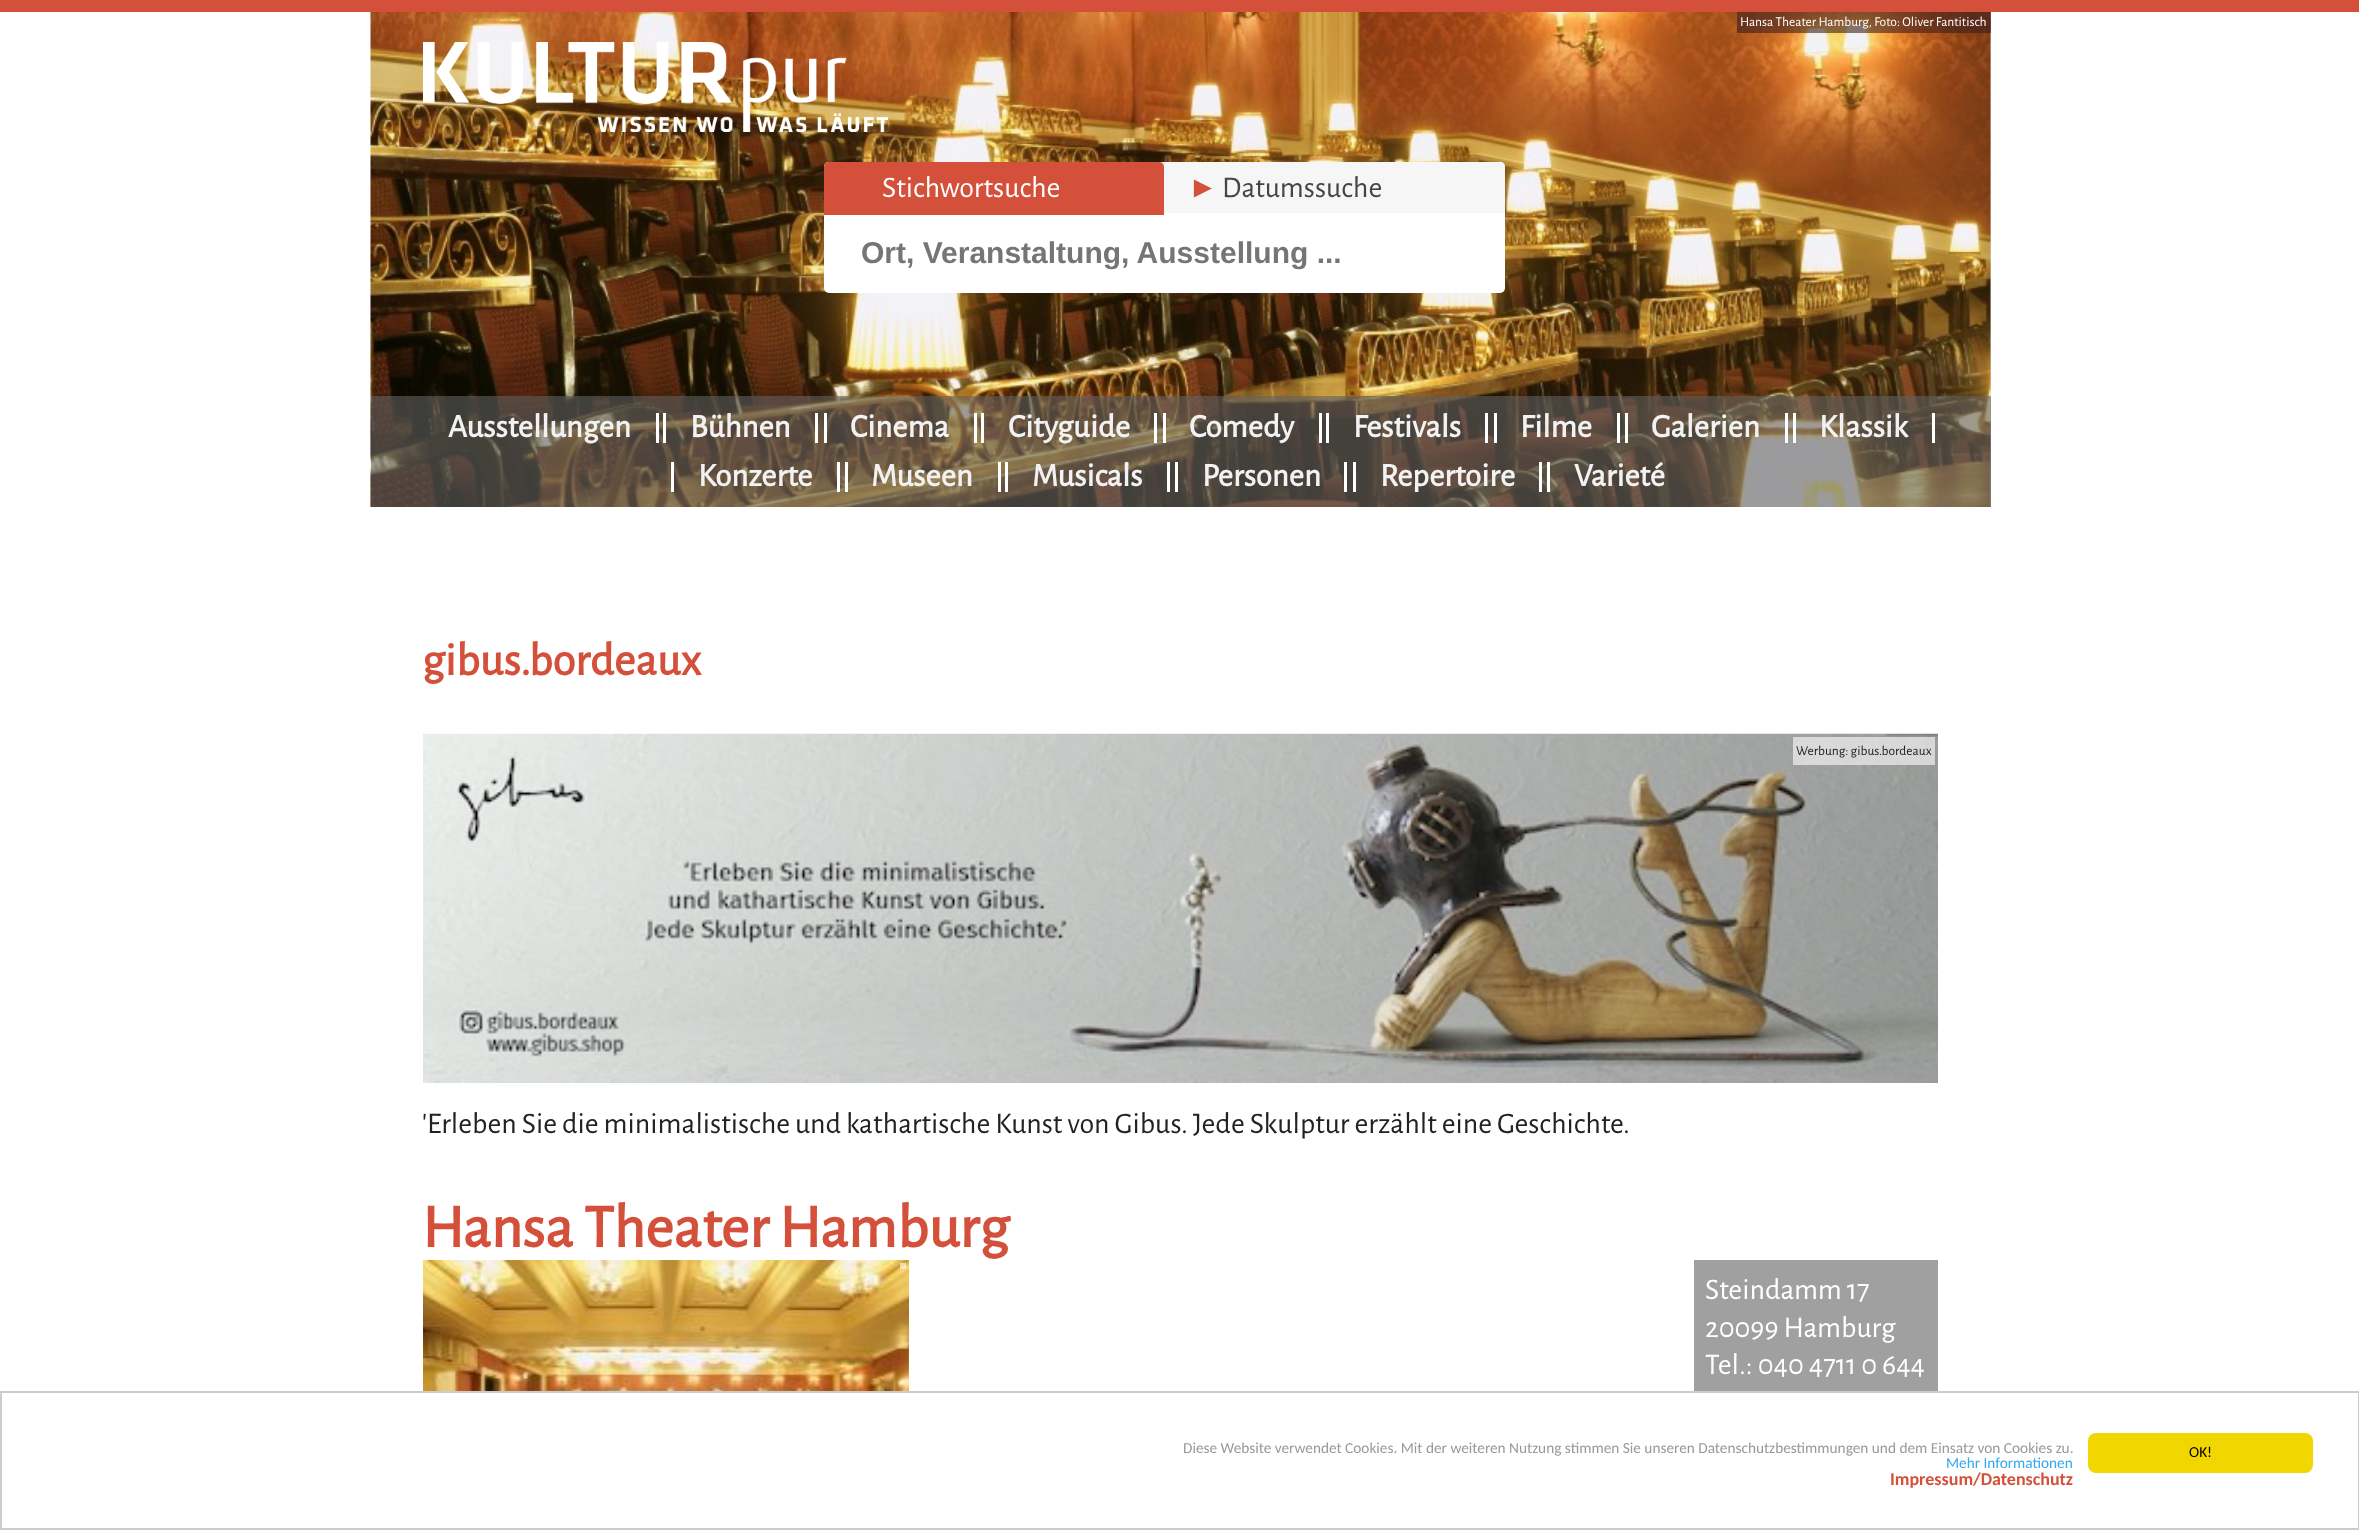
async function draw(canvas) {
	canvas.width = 2359;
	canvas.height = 1530;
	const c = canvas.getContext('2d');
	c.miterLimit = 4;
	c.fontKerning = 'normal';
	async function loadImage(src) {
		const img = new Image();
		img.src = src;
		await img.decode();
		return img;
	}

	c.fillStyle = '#fff';
	c.fillRect(0, 0, 2359, 1530);
	c.fillStyle = '#d4503b';
	c.fillRect(0, 0, 2359, 12);
	c.fillStyle = '#cecece';
	c.fillRect(1990, 12, 1, 495);
	c.drawImage(await loadImage('img1.png'), 370, 12, 1621, 495);
	c.fillStyle = '#3c1e1e99';
	c.fillRect(1737, 12, 254, 21);
	c.font = '13.5px Alegreya Sans';
	c.fillStyle = '#fff';
	c.fillText('Hansa Theater Hamburg, Foto: Oliver Fantitisch', 1740, 26);
	c.drawImage(await loadImage('img2.png'), 423, 42, 465, 90);
	c.beginPath();
	c.roundRect(824, 162, 681, 131, 5);
	c.fill();
	c.fillStyle = '#e9e9e9';
	c.beginPath();
	c.roundRect(824, 162, 681, 51, 5);
	c.fill();
	c.fillStyle = '#d4503b';
	c.beginPath();
	c.roundRect(824, 162, 340, 53, [5, 5, 0, 0]);
	c.fill();
	c.font = '30px Alegreya Sans';
	c.fillStyle = '#fff';
	c.fillText('Stichwortsuche', 882, 197);
	c.fillStyle = '#f6f6f6';
	c.beginPath();
	c.roundRect(1164, 162, 341, 51, [5, 5, 0, 0]);
	c.fill();
	c.font = '30px Liberation Sans';
	c.fillStyle = '#d4503b';
	c.fillText('►', 1188, 197);
	c.font = '30px Alegreya Sans';
	c.fillStyle = '#454545';
	c.fillText('Datumssuche', 1222, 197);
	c.font = 'bold 30px Liberation Sans';
	c.fillStyle = '#757575';
	c.fillText('Ort, Veranstaltung, Ausstellung ...', 861, 263);
	c.fillStyle = '#60606099';
	c.fillRect(371, 396, 1620, 111);
	c.fillStyle = '#fff';
	c.fillRect(656, 413, 3, 30);
	c.font = 'bold 33px Alegreya Sans';
	c.fillStyle = '#f2f2f2';
	c.fillText('Ausstellungen', 448, 437);
	c.fillStyle = '#fff';
	c.fillRect(815, 413, 3, 30);
	c.fillRect(663, 413, 3, 30);
	c.fillStyle = '#f2f2f2';
	c.fillText('Bühnen', 690, 437);
	c.fillStyle = '#fff';
	c.fillRect(974, 413, 3, 30);
	c.fillRect(824, 413, 3, 30);
	c.fillStyle = '#f2f2f2';
	c.fillText('Cinema', 850, 437);
	c.fillStyle = '#fff';
	c.fillRect(1154, 413, 3, 30);
	c.fillRect(981, 413, 3, 30);
	c.fillStyle = '#f2f2f2';
	c.fillText('Cityguide', 1008, 437);
	c.fillStyle = '#fff';
	c.fillRect(1319, 413, 3, 30);
	c.fillRect(1163, 413, 3, 30);
	c.fillStyle = '#f2f2f2';
	c.fillText('Comedy', 1189, 437);
	c.fillStyle = '#fff';
	c.fillRect(1485, 413, 3, 30);
	c.fillRect(1326, 413, 3, 30);
	c.fillStyle = '#f2f2f2';
	c.fillText('Festivals', 1353, 437);
	c.fillStyle = '#fff';
	c.fillRect(1617, 413, 3, 30);
	c.fillRect(1494, 413, 3, 30);
	c.fillStyle = '#f2f2f2';
	c.fillText('Filme', 1520, 437);
	c.fillStyle = '#fff';
	c.fillRect(1785, 413, 3, 30);
	c.fillRect(1625, 413, 3, 30);
	c.fillStyle = '#f2f2f2';
	c.fillText('Galerien', 1651, 437);
	c.fillStyle = '#fff';
	c.fillRect(1932, 413, 3, 30);
	c.fillRect(1793, 413, 3, 30);
	c.fillStyle = '#f2f2f2';
	c.fillText('Klassik', 1819, 437);
	c.fillStyle = '#fff';
	c.fillRect(837, 462, 3, 30);
	c.fillRect(671, 462, 3, 30);
	c.fillStyle = '#f2f2f2';
	c.fillText('Konzerte', 698, 486);
	c.fillStyle = '#fff';
	c.fillRect(998, 462, 3, 30);
	c.fillRect(845, 462, 3, 30);
	c.fillStyle = '#f2f2f2';
	c.fillText('Museen', 871, 486);
	c.fillStyle = '#fff';
	c.fillRect(1167, 462, 3, 30);
	c.fillRect(1005, 462, 3, 30);
	c.fillStyle = '#f2f2f2';
	c.fillText('Musicals', 1032, 486);
	c.fillStyle = '#fff';
	c.fillRect(1344, 462, 3, 30);
	c.fillRect(1175, 462, 3, 30);
	c.fillStyle = '#f2f2f2';
	c.fillText('Personen', 1202, 486);
	c.fillStyle = '#fff';
	c.fillRect(1539, 462, 3, 30);
	c.fillRect(1353, 462, 3, 30);
	c.fillStyle = '#f2f2f2';
	c.fillText('Repertoire', 1380, 486);
	c.fillStyle = '#fff';
	c.fillRect(1547, 462, 3, 30);
	c.fillStyle = '#f2f2f2';
	c.fillText('Varieté', 1574, 486);
	c.font = 'bold 46.5px Alegreya Sans';
	c.fillStyle = '#d4503b';
	c.fillText('gibus.bordeaux', 422, 675);
	c.drawImage(await loadImage('img3.png'), 423, 733, 1515, 350);
	c.fillStyle = '#ffffff99';
	c.fillRect(1793, 737, 142, 28);
	c.font = '13.5px Alegreya Sans';
	c.fillStyle = '#222';
	c.fillText('Werbung: gibus.bordeaux', 1796, 755);
	c.font = '30px Alegreya Sans';
	c.fillText('\'Erleben Sie die minimalistische und kathartische Kunst von Gibus. Jede Skulptur erzählt eine Geschichte.', 422, 1133);
	c.font = 'bold 61.5px Alegreya Sans';
	c.fillStyle = '#d4503b';
	c.fillText('Hansa Theater Hamburg', 422, 1247);
	c.drawImage(await loadImage('img4.png'), 423, 1260, 486, 131);
	c.fillStyle = '#ffffff99';
	c.fillRect(900, 1263, 6, 6);
	c.fillStyle = '#a0a0a0';
	c.fillRect(1694, 1260, 244, 131);
	c.font = '30px Alegreya Sans';
	c.fillStyle = '#fff';
	for (const [text, x, y] of [
		['Steindamm 17', 1705, 1299],
		['20099 Hamburg', 1705, 1337],
		['Tel.: 040 4711 0 644', 1705, 1374],
	]) {
		c.fillText(text, x, y);
	}
	c.strokeStyle = '#ccc';
	c.lineWidth = 2;
	c.strokeRect(1, 1392, 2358, 137);
	c.font = '15.3px Carlito';
	c.fillStyle = '#999';
	c.fillText('Diese Website verwendet Cookies. Mit der weiteren Nutzung stimmen Sie unseren Datenschutzbestimmungen und dem Einsatz von Cookies zu.', 1183, 1453);
	c.fillStyle = '#31a8f0';
	c.fillText('Mehr Informationen', 1946, 1468);
	c.font = 'bold 18px Carlito';
	c.fillStyle = '#d4503b';
	c.fillText('Impressum/Datenschutz', 1890, 1485);
	c.fillStyle = '#f1d600';
	c.beginPath();
	c.roundRect(2088, 1433, 225, 40, 8);
	c.fill();
	c.font = '15.3px Carlito';
	c.fillStyle = '#000';
	c.fillText('OK!', 2189, 1457);
}

draw(document.querySelector('canvas'));
